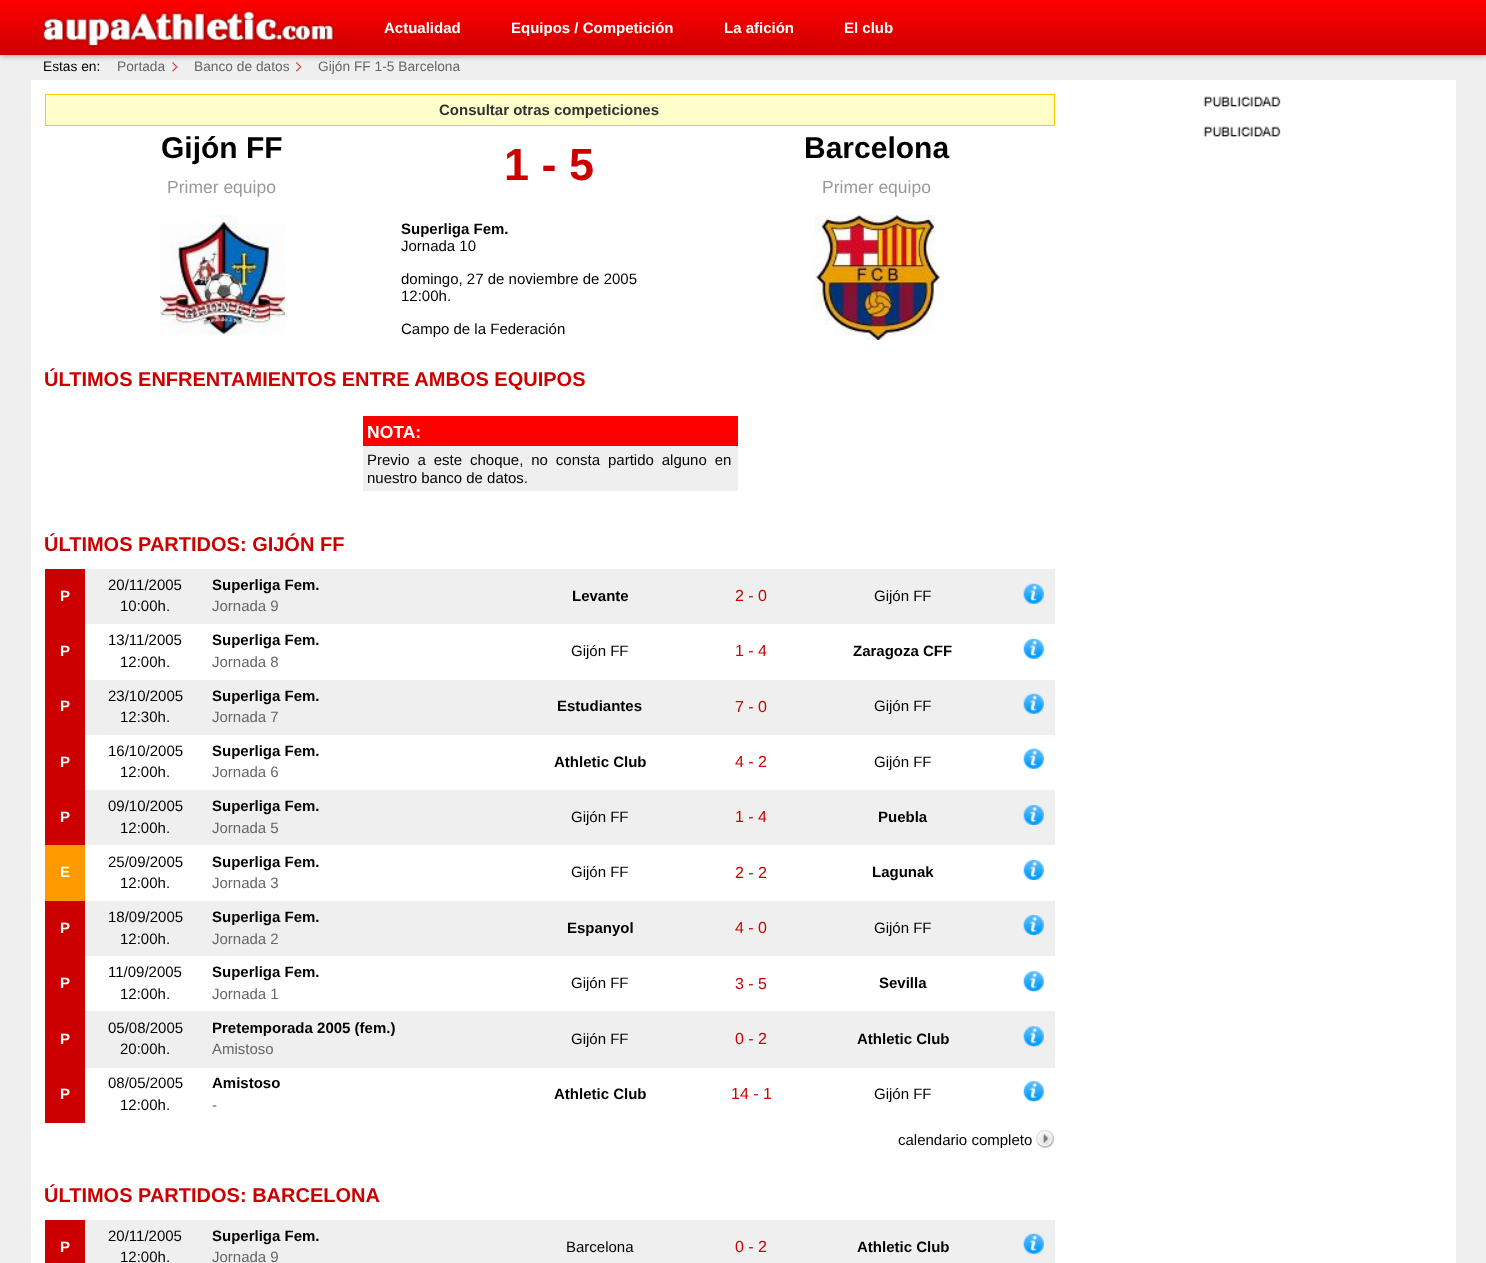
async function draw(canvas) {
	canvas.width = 1486;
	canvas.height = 1263;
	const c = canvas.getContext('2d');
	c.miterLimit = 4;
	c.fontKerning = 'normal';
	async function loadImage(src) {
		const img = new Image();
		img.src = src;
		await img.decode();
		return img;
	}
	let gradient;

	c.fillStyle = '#efefef';
	c.fillRect(0, 0, 1486, 1263);
	c.drawImage(await loadImage('img2.png'), 172, 62, 6, 10);
	c.drawImage(await loadImage('img3.png'), 296, 62, 6, 10);
	c.fillStyle = '#888';
	c.filter = 'blur(3px)';
	c.beginPath();
	c.rect(0, 0, 1486, 55);
	c.fill();
	c.filter = 'none';
	gradient = c.createLinearGradient(743, 0, 743, 55);
	gradient.addColorStop(0, '#f00');
	gradient.addColorStop(1, '#c00');
	c.fillStyle = gradient;
	c.fillRect(0, 0, 1486, 55);
	c.drawImage(await loadImage('img1.png'), 41, 10, 294, 38);
	c.font = 'bold 15px Liberation Sans';
	c.fillStyle = '#fff';
	for (const [text, x, y] of [
		['Actualidad', 384, 33],
		['Equipos / Competición', 511, 33],
		['La afición', 724, 33],
		['El club', 844, 33],
	]) {
		c.fillText(text, x, y);
	}
	c.font = '13.75px Liberation Sans';
	c.fillStyle = '#000';
	c.fillText('Estas en:', 43, 71);
	c.fillStyle = '#666';
	for (const [text, x, y] of [
		['Portada', 117, 71],
		['Banco de datos', 194, 71],
		['Gijón FF 1-5 Barcelona', 318, 71],
	]) {
		c.fillText(text, x, y);
	}
	for (const [x, y, w, h, color] of [
		[31, 80, 1425, 1183, '#fff'],
		[45, 94, 1010, 32, '#fc0'],
		[46, 95, 1008, 30, '#ffc'],
	]) {
		c.fillStyle = color;
		c.fillRect(x, y, w, h);
	}
	c.font = 'bold 15px Liberation Sans';
	c.fillStyle = '#333';
	c.fillText('Consultar otras competiciones', 439, 115);
	c.font = 'bold 30px Liberation Sans';
	c.fillStyle = '#000';
	c.fillText('Gijón FF', 161, 158);
	c.font = '17.5px Liberation Sans';
	c.fillStyle = '#999';
	c.fillText('Primer equipo', 167, 193);
	c.font = 'bold 45px Liberation Sans';
	c.fillStyle = '#c00';
	c.fillText('1 - 5', 504, 180);
	c.font = 'bold 30px Liberation Sans';
	c.fillStyle = '#000';
	c.fillText('Barcelona', 804, 158);
	c.font = '17.5px Liberation Sans';
	c.fillStyle = '#999';
	c.fillText('Primer equipo', 822, 193);
	c.drawImage(await loadImage('img4.png'), 160, 215, 125, 121);
	c.font = 'bold 15px Liberation Sans';
	c.fillStyle = '#000';
	c.fillText('Superliga Fem.', 401, 234);
	c.font = '15px Liberation Sans';
	for (const [text, x, y] of [
		['Jornada 10', 401, 251],
		['domingo, 27 de noviembre de 2005', 401, 284],
		['12:00h.', 401, 301],
		['Campo de la Federación', 401, 334],
	]) {
		c.fillText(text, x, y);
	}
	c.drawImage(await loadImage('img5.png'), 815, 215, 125, 125);
	c.font = 'bold 20px Liberation Sans';
	c.fillStyle = '#c00';
	c.fillText('ÚLTIMOS ENFRENTAMIENTOS ENTRE AMBOS EQUIPOS', 44, 386);
	c.fillStyle = '#f00';
	c.fillRect(363, 416, 375, 30);
	c.font = 'bold 17.5px Liberation Sans';
	c.fillStyle = '#fff';
	c.fillText('NOTA:', 367, 438);
	c.fillStyle = '#efefef';
	c.fillRect(363, 446, 375, 45);
	c.wordSpacing = '3.75px';
	c.font = '15px Liberation Sans';
	c.fillStyle = '#000';
	c.fillText('Previo a este choque, no consta partido alguno en', 367, 465);
	c.wordSpacing = '0px';
	c.fillText('nuestro banco de datos.', 367, 483);
	c.font = 'bold 20px Liberation Sans';
	c.fillStyle = '#c00';
	c.fillText('ÚLTIMOS PARTIDOS: GIJÓN FF', 44, 551);
	c.fillStyle = '#efefef';
	c.fillRect(85, 569, 970, 55);
	c.fillStyle = '#c00';
	c.fillRect(45, 569, 40, 276);
	c.font = 'bold 15px Liberation Sans';
	c.fillStyle = '#fff';
	c.fillText('P', 60, 601);
	c.font = '15px Liberation Sans';
	c.fillStyle = '#000';
	c.fillText('20/11/2005', 108, 590);
	c.fillText('10:00h.', 120, 611);
	c.font = 'bold 15px Liberation Sans';
	c.fillText('Superliga Fem.', 212, 590);
	c.font = '15px Liberation Sans';
	c.fillStyle = '#666';
	c.fillText('Jornada 9', 212, 611);
	c.font = 'bold 15px Liberation Sans';
	c.fillStyle = '#000';
	c.fillText('Levante', 572, 601);
	c.font = '16px Liberation Sans';
	c.fillStyle = '#c00';
	c.fillText('2 - 0', 735, 601);
	c.font = '15px Liberation Sans';
	c.fillStyle = '#000';
	c.fillText('Gijón FF', 874, 601);
	c.drawImage(await loadImage('img6.png'), 1023, 583, 21, 21);
	c.font = 'bold 15px Liberation Sans';
	c.fillStyle = '#fff';
	c.fillText('P', 60, 656);
	c.font = '15px Liberation Sans';
	c.fillStyle = '#000';
	c.fillText('13/11/2005', 108, 645);
	c.fillText('12:00h.', 120, 667);
	c.font = 'bold 15px Liberation Sans';
	c.fillText('Superliga Fem.', 212, 645);
	c.font = '15px Liberation Sans';
	c.fillStyle = '#666';
	c.fillText('Jornada 8', 212, 667);
	c.fillStyle = '#000';
	c.fillText('Gijón FF', 571, 656);
	c.font = '16px Liberation Sans';
	c.fillStyle = '#c00';
	c.fillText('1 - 4', 735, 656);
	c.font = 'bold 15px Liberation Sans';
	c.fillStyle = '#000';
	c.fillText('Zaragoza CFF', 853, 656);
	c.drawImage(await loadImage('img7.png'), 1023, 638, 21, 21);
	c.fillStyle = '#efefef';
	c.fillRect(85, 680, 970, 55);
	c.fillStyle = '#fff';
	c.fillText('P', 60, 711);
	c.font = '15px Liberation Sans';
	c.fillStyle = '#000';
	c.fillText('23/10/2005', 108, 701);
	c.fillText('12:30h.', 120, 722);
	c.font = 'bold 15px Liberation Sans';
	c.fillText('Superliga Fem.', 212, 701);
	c.font = '15px Liberation Sans';
	c.fillStyle = '#666';
	c.fillText('Jornada 7', 212, 722);
	c.font = 'bold 15px Liberation Sans';
	c.fillStyle = '#000';
	c.fillText('Estudiantes', 557, 711);
	c.font = '16px Liberation Sans';
	c.fillStyle = '#c00';
	c.fillText('7 - 0', 735, 712);
	c.font = '15px Liberation Sans';
	c.fillStyle = '#000';
	c.fillText('Gijón FF', 874, 711);
	c.drawImage(await loadImage('img6.png'), 1023, 693, 21, 21);
	c.font = 'bold 15px Liberation Sans';
	c.fillStyle = '#fff';
	c.fillText('P', 60, 767);
	c.font = '15px Liberation Sans';
	c.fillStyle = '#000';
	c.fillText('16/10/2005', 108, 756);
	c.fillText('12:00h.', 120, 777);
	c.font = 'bold 15px Liberation Sans';
	c.fillText('Superliga Fem.', 212, 756);
	c.font = '15px Liberation Sans';
	c.fillStyle = '#666';
	c.fillText('Jornada 6', 212, 777);
	c.font = 'bold 15px Liberation Sans';
	c.fillStyle = '#000';
	c.fillText('Athletic Club', 554, 767);
	c.font = '16px Liberation Sans';
	c.fillStyle = '#c00';
	c.fillText('4 - 2', 735, 767);
	c.font = '15px Liberation Sans';
	c.fillStyle = '#000';
	c.fillText('Gijón FF', 874, 767);
	c.drawImage(await loadImage('img7.png'), 1023, 748, 21, 21);
	c.fillStyle = '#efefef';
	c.fillRect(85, 790, 970, 55);
	c.font = 'bold 15px Liberation Sans';
	c.fillStyle = '#fff';
	c.fillText('P', 60, 822);
	c.font = '15px Liberation Sans';
	c.fillStyle = '#000';
	c.fillText('09/10/2005', 108, 811);
	c.fillText('12:00h.', 120, 833);
	c.font = 'bold 15px Liberation Sans';
	c.fillText('Superliga Fem.', 212, 811);
	c.font = '15px Liberation Sans';
	c.fillStyle = '#666';
	c.fillText('Jornada 5', 212, 833);
	c.fillStyle = '#000';
	c.fillText('Gijón FF', 571, 822);
	c.font = '16px Liberation Sans';
	c.fillStyle = '#c00';
	c.fillText('1 - 4', 735, 822);
	c.font = 'bold 15px Liberation Sans';
	c.fillStyle = '#000';
	c.fillText('Puebla', 878, 822);
	c.drawImage(await loadImage('img8.png'), 1023, 805, 21, 20);
	c.fillStyle = '#f90';
	c.fillRect(45, 845, 40, 56);
	c.fillStyle = '#fff';
	c.fillText('E', 60, 877);
	c.font = '15px Liberation Sans';
	c.fillStyle = '#000';
	c.fillText('25/09/2005', 108, 867);
	c.fillText('12:00h.', 120, 888);
	c.font = 'bold 15px Liberation Sans';
	c.fillText('Superliga Fem.', 212, 867);
	c.font = '15px Liberation Sans';
	c.fillStyle = '#666';
	c.fillText('Jornada 3', 212, 888);
	c.fillStyle = '#000';
	c.fillText('Gijón FF', 571, 877);
	c.font = '16px Liberation Sans';
	c.fillStyle = '#c00';
	c.fillText('2 - 2', 735, 878);
	c.font = 'bold 15px Liberation Sans';
	c.fillStyle = '#000';
	c.fillText('Lagunak', 872, 877);
	c.drawImage(await loadImage('img9.png'), 1023, 860, 21, 20);
	c.fillStyle = '#efefef';
	c.fillRect(85, 901, 970, 55);
	c.fillStyle = '#c00';
	c.fillRect(45, 901, 40, 222);
	c.fillStyle = '#fff';
	c.fillText('P', 60, 933);
	c.font = '15px Liberation Sans';
	c.fillStyle = '#000';
	c.fillText('18/09/2005', 108, 922);
	c.fillText('12:00h.', 120, 944);
	c.font = 'bold 15px Liberation Sans';
	c.fillText('Superliga Fem.', 212, 922);
	c.font = '15px Liberation Sans';
	c.fillStyle = '#666';
	c.fillText('Jornada 2', 212, 944);
	c.font = 'bold 15px Liberation Sans';
	c.fillStyle = '#000';
	c.fillText('Espanyol', 567, 933);
	c.font = '16px Liberation Sans';
	c.fillStyle = '#c00';
	c.fillText('4 - 0', 735, 933);
	c.font = '15px Liberation Sans';
	c.fillStyle = '#000';
	c.fillText('Gijón FF', 874, 933);
	c.drawImage(await loadImage('img8.png'), 1023, 915, 21, 20);
	c.font = 'bold 15px Liberation Sans';
	c.fillStyle = '#fff';
	c.fillText('P', 60, 988);
	c.font = '15px Liberation Sans';
	c.fillStyle = '#000';
	c.fillText('11/09/2005', 108, 977);
	c.fillText('12:00h.', 120, 999);
	c.font = 'bold 15px Liberation Sans';
	c.fillText('Superliga Fem.', 212, 977);
	c.font = '15px Liberation Sans';
	c.fillStyle = '#666';
	c.fillText('Jornada 1', 212, 999);
	c.fillStyle = '#000';
	c.fillText('Gijón FF', 571, 988);
	c.font = '16px Liberation Sans';
	c.fillStyle = '#c00';
	c.fillText('3 - 5', 735, 989);
	c.font = 'bold 15px Liberation Sans';
	c.fillStyle = '#000';
	c.fillText('Sevilla', 879, 988);
	c.drawImage(await loadImage('img10.png'), 1023, 971, 21, 21);
	c.fillStyle = '#efefef';
	c.fillRect(85, 1011, 970, 57);
	c.fillStyle = '#fff';
	c.fillText('P', 60, 1044);
	c.font = '15px Liberation Sans';
	c.fillStyle = '#000';
	c.fillText('05/08/2005', 108, 1033);
	c.fillText('20:00h.', 120, 1054);
	c.font = 'bold 15px Liberation Sans';
	c.fillText('Pretemporada 2005 (fem.)', 212, 1033);
	c.font = '15px Liberation Sans';
	c.fillStyle = '#666';
	c.fillText('Amistoso', 212, 1054);
	c.fillStyle = '#000';
	c.fillText('Gijón FF', 571, 1044);
	c.font = '16px Liberation Sans';
	c.fillStyle = '#c00';
	c.fillText('0 - 2', 735, 1044);
	c.font = 'bold 15px Liberation Sans';
	c.fillStyle = '#000';
	c.fillText('Athletic Club', 857, 1044);
	c.drawImage(await loadImage('img11.png'), 1023, 1026, 21, 21);
	c.fillStyle = '#fff';
	c.fillText('P', 60, 1099);
	c.font = '15px Liberation Sans';
	c.fillStyle = '#000';
	c.fillText('08/05/2005', 108, 1088);
	c.fillText('12:00h.', 120, 1110);
	c.font = 'bold 15px Liberation Sans';
	c.fillText('Amistoso', 212, 1088);
	c.font = '15px Liberation Sans';
	c.fillStyle = '#666';
	c.fillText('-', 212, 1110);
	c.font = 'bold 15px Liberation Sans';
	c.fillStyle = '#000';
	c.fillText('Athletic Club', 554, 1099);
	c.font = '16px Liberation Sans';
	c.fillStyle = '#c00';
	c.fillText('14 - 1', 731, 1099);
	c.font = '15px Liberation Sans';
	c.fillStyle = '#000';
	c.fillText('Gijón FF', 874, 1099);
	c.drawImage(await loadImage('img10.png'), 1023, 1081, 21, 21);
	c.drawImage(await loadImage('img12.png'), 1036, 1130, 18, 18);
	c.fillText('calendario completo', 898, 1145);
	c.font = 'bold 20px Liberation Sans';
	c.fillStyle = '#c00';
	c.fillText('ÚLTIMOS PARTIDOS: BARCELONA', 44, 1202);
	c.fillStyle = '#efefef';
	c.fillRect(85, 1220, 970, 43);
	c.fillStyle = '#c00';
	c.fillRect(45, 1220, 40, 43);
	c.font = 'bold 15px Liberation Sans';
	c.fillStyle = '#fff';
	c.fillText('P', 60, 1252);
	c.font = '15px Liberation Sans';
	c.fillStyle = '#000';
	c.fillText('20/11/2005', 108, 1241);
	c.fillText('12:00h.', 120, 1262);
	c.font = 'bold 15px Liberation Sans';
	c.fillText('Superliga Fem.', 212, 1241);
	c.font = '15px Liberation Sans';
	c.fillStyle = '#666';
	c.fillText('Jornada 9', 212, 1262);
	c.fillStyle = '#000';
	c.fillText('Barcelona', 566, 1252);
	c.font = '16px Liberation Sans';
	c.fillStyle = '#c00';
	c.fillText('0 - 2', 735, 1252);
	c.font = 'bold 15px Liberation Sans';
	c.fillStyle = '#000';
	c.fillText('Athletic Club', 857, 1252);
	c.drawImage(await loadImage('img6.png'), 1023, 1233, 21, 21);
	c.drawImage(await loadImage('img13.png'), 1203, 96, 78, 11);
	c.drawImage(await loadImage('img13.png'), 1203, 126, 78, 11);
}

draw(document.querySelector('canvas'));
